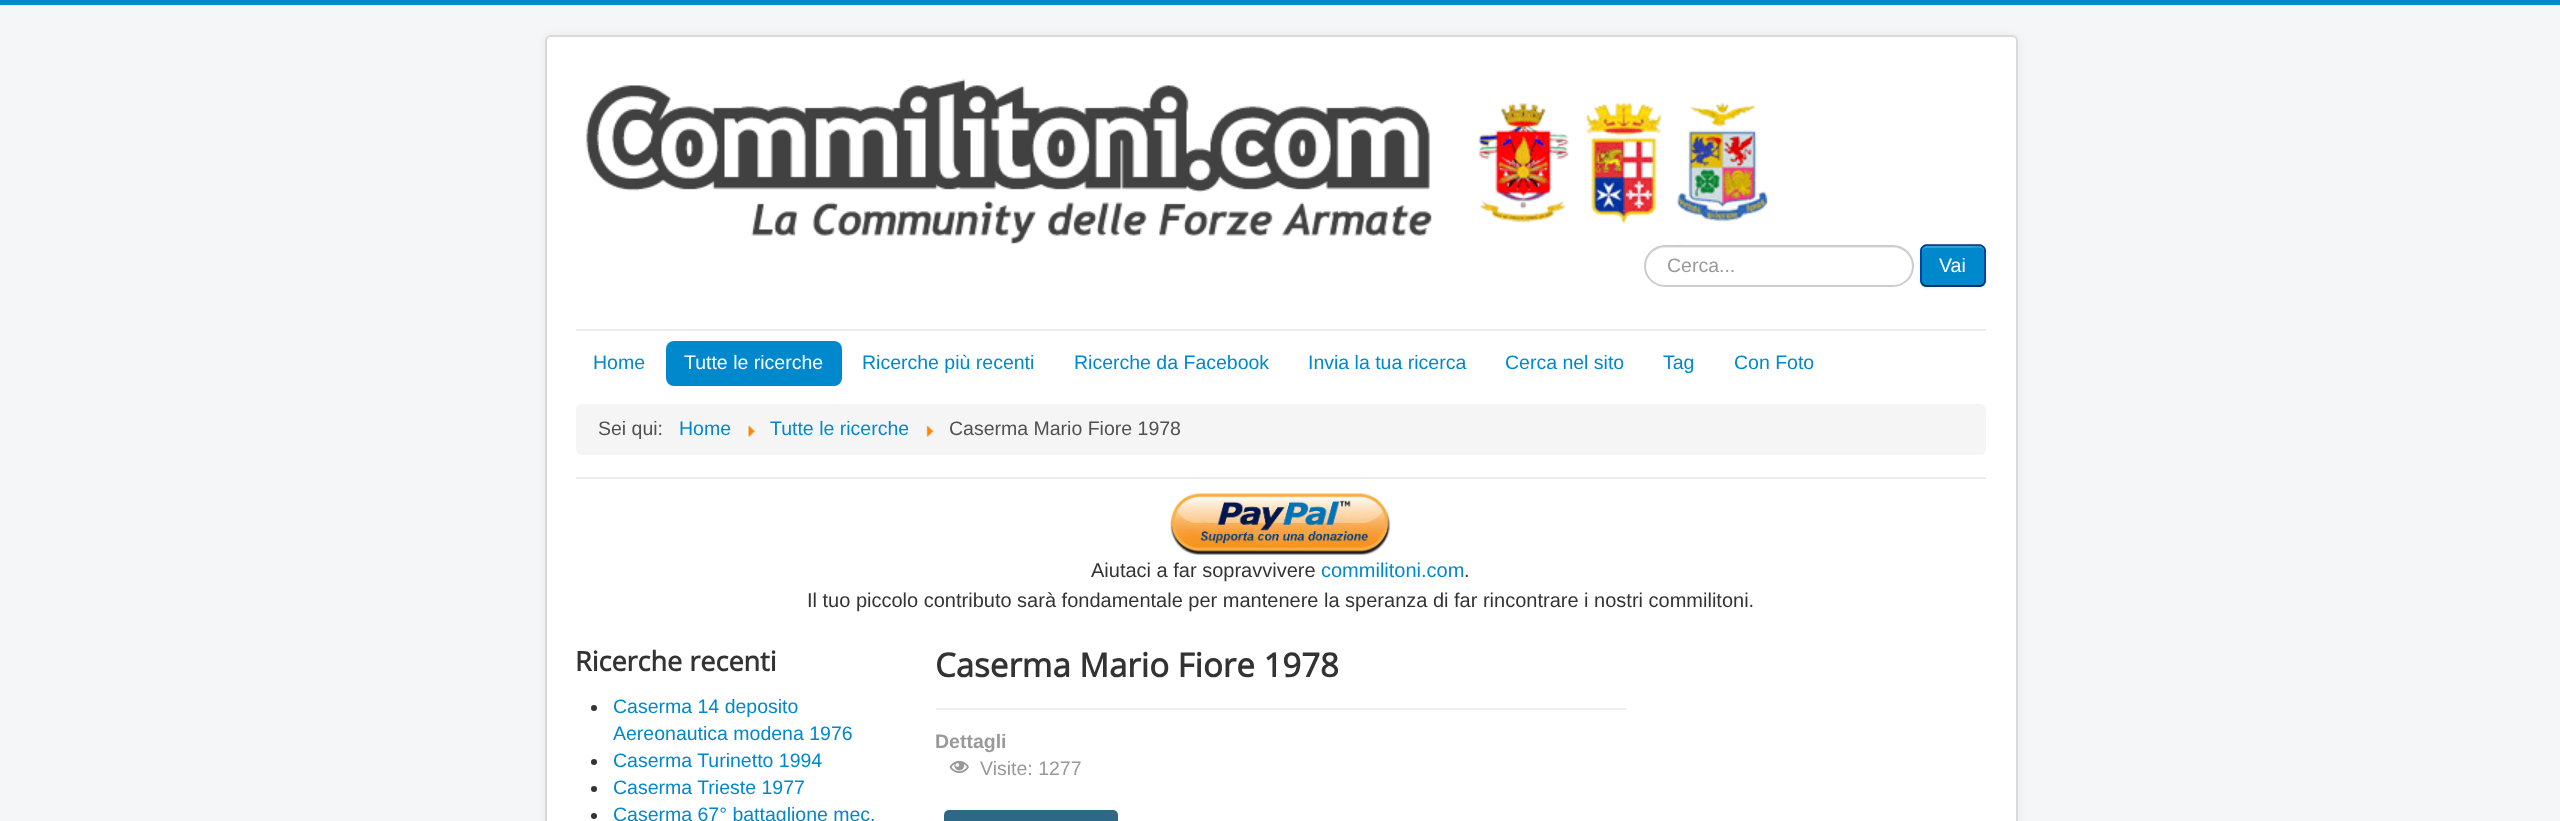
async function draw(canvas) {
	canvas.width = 2560;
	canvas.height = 821;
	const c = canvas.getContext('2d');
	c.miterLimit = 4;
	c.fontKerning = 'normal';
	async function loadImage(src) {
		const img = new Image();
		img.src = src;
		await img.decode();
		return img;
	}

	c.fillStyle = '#f4f6f7';
	c.fillRect(0, 0, 2560, 821);
	c.fillStyle = '#08c';
	c.fillRect(0, 0, 2560, 5);
	c.fillStyle = '#0000000d';
	c.filter = 'blur(4.5px)';
	c.beginPath();
	c.roundRect(545, 35, 1473, 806, 6);
	c.fill();
	c.filter = 'none';
	c.fillStyle = '#fff';
	c.beginPath();
	c.roundRect(545, 35, 1473, 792, 6);
	c.fill();
	c.beginPath();
	c.roundRect(546, 36, 1471, 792, 5);
	c.strokeStyle = '#00000026';
	c.lineWidth = 2;
	c.stroke();
	c.drawImage(await loadImage('img1.png'), 586, 79, 1182, 166);
	c.fillStyle = '#ececec';
	c.beginPath();
	c.moveTo(1665, 248);
	c.lineTo(1893, 248);
	c.bezierCurveTo(1904, 248, 1912, 256, 1912, 267);
	c.bezierCurveTo(1912, 270, 1911, 273, 1910, 276);
	c.bezierCurveTo(1913, 272, 1914, 266, 1913, 262);
	c.bezierCurveTo(1911, 253, 1903, 246, 1894, 246);
	c.lineTo(1704, 246);
	c.bezierCurveTo(1690, 246, 1645, 237, 1646, 266);
	c.bezierCurveTo(1646, 256, 1654, 248, 1665, 248);
	c.closePath();
	c.fill();
	c.beginPath();
	c.roundRect(1645, 246, 268, 40, 20);
	c.strokeStyle = '#ccc';
	c.stroke();
	c.font = '19.5px Liberation Sans';
	c.fillStyle = '#999';
	c.fillText('Cerca...', 1667, 272);
	c.fillStyle = '#0000000d';
	c.filter = 'blur(1.5px)';
	c.beginPath();
	c.roundRect(1920, 246, 66, 42, 6);
	c.fill();
	c.filter = 'none';
	c.fillStyle = '#08c';
	c.beginPath();
	c.roundRect(1920, 245, 66, 42, 6);
	c.fill();
	c.fillStyle = '#33a0d6';
	c.beginPath();
	c.moveTo(1926, 248);
	c.lineTo(1971, 248);
	c.bezierCurveTo(1974, 248, 1983, 246, 1984, 251);
	c.lineTo(1984, 283);
	c.bezierCurveTo(1986, 281, 1985, 278, 1985, 275);
	c.lineTo(1985, 266);
	c.bezierCurveTo(1985, 242, 1987, 246, 1962, 246);
	c.lineTo(1936, 246);
	c.bezierCurveTo(1930, 246, 1922, 244, 1922, 252);
	c.bezierCurveTo(1922, 250, 1924, 248, 1926, 248);
	c.closePath();
	c.fill();
	c.beginPath();
	c.moveTo(1983.5, 284);
	c.bezierCurveTo(1982.5, 285, 1981.5, 286, 1980, 286);
	c.lineTo(1926, 286);
	c.bezierCurveTo(1924.5, 286, 1923.5, 285, 1922.5, 284);
	c.strokeStyle = '#001641';
	c.lineWidth = 1.5;
	c.stroke();
	c.beginPath();
	c.moveTo(1922.5, 284);
	c.bezierCurveTo(1921.5, 283, 1921, 282, 1921, 280.5);
	c.lineTo(1921, 250.5);
	c.bezierCurveTo(1921, 249, 1921.5, 248, 1922.5, 247);
	c.bezierCurveTo(1923.5, 246, 1924.5, 245, 1926, 245);
	c.lineTo(1980, 245);
	c.bezierCurveTo(1981.5, 245, 1982.5, 246, 1983.5, 247);
	c.bezierCurveTo(1984.5, 248, 1985, 249, 1985, 250.5);
	c.lineTo(1985, 280.5);
	c.bezierCurveTo(1985, 282, 1984.5, 283, 1983.5, 284);
	c.strokeStyle = '#002f8d';
	c.stroke();
	c.fillStyle = '#fff';
	c.fillText('Vai', 1939, 272);
	c.fillStyle = '#ececec';
	c.fillRect(576, 329, 1410, 2);
	c.fillRect(576, 477, 1410, 2);
	c.fillStyle = '#08c';
	c.fillText('Home', 593, 369);
	c.beginPath();
	c.roundRect(666, 341, 176, 45, 8);
	c.fill();
	c.fillStyle = '#fff';
	c.fillText('Tutte le ricerche', 684, 369);
	c.fillStyle = '#08c';
	for (const [text, x, y] of [
		['Ricerche più recenti', 862, 369],
		['Ricerche da Facebook', 1074, 369],
		['Invia la tua ricerca', 1308, 369],
		['Cerca nel sito', 1505, 369],
		['Tag', 1663, 369],
		['Con Foto', 1734, 369],
	]) {
		c.fillText(text, x, y);
	}
	c.fillStyle = '#f5f5f5';
	c.beginPath();
	c.roundRect(576, 404, 1410, 51, 6);
	c.fill();
	c.fillStyle = '#515151';
	c.fillText('Sei qui:', 598, 435);
	c.fillStyle = '#08c';
	c.fillText('Home', 679, 435);
	c.drawImage(await loadImage('img2.png'), 748, 425, 7, 12);
	c.fillText('Tutte le ricerche', 770, 435);
	c.drawImage(await loadImage('img3.png'), 926, 425, 8, 12);
	c.fillStyle = '#515151';
	c.fillText('Caserma Mario Fiore 1978', 949, 435);
	c.drawImage(await loadImage('img4.png'), 1170, 493, 221, 62);
	c.font = '20px Liberation Sans';
	c.fillStyle = '#333';
	c.fillText('Aiutaci a far sopravvivere', 1091, 577);
	c.fillStyle = '#08c';
	c.fillText('commilitoni.com', 1321, 577);
	c.fillStyle = '#333';
	c.fillText('.', 1464, 577);
	c.fillText('Il tuo piccolo contributo sarà fondamentale per mantenere la speranza di far rincontrare i nostri commilitoni.', 807, 607);
	c.font = 'bold 27px Open Sans';
	c.fillText('Ricerche recenti', 575, 671);
	c.beginPath();
	c.arc(594, 708, 3, 0, 2 * Math.PI);
	c.fill();
	c.font = '19.5px Liberation Sans';
	c.fillStyle = '#08c';
	c.fillText('Caserma 14 deposito', 613, 713);
	c.fillText('Aereonautica modena 1976', 613, 740);
	c.fillStyle = '#333';
	c.beginPath();
	c.arc(594, 762, 3, 0, 2 * Math.PI);
	c.fill();
	c.fillStyle = '#08c';
	c.fillText('Caserma Turinetto 1994', 613, 767);
	c.fillStyle = '#333';
	c.beginPath();
	c.arc(594, 789, 3, 0, 2 * Math.PI);
	c.fill();
	c.fillStyle = '#08c';
	c.fillText('Caserma Trieste 1977', 613, 794);
	c.fillStyle = '#333';
	c.beginPath();
	c.arc(594, 816, 3, 0, 2 * Math.PI);
	c.fill();
	c.fillStyle = '#08c';
	c.fillText('Caserma 67° battaglione mec.', 613, 821);
	c.fillStyle = '#eee';
	c.fillRect(936, 708, 690, 2);
	c.font = 'bold 33px Open Sans';
	c.fillStyle = '#333';
	c.fillText('Caserma Mario Fiore 1978', 935, 677);
	c.font = 'bold 19.5px Liberation Sans';
	c.fillStyle = '#999';
	c.fillText('Dettagli', 935, 748);
	c.drawImage(await loadImage('img5.png'), 949, 760, 20, 14);
	c.font = '19.5px Liberation Sans';
	c.fillText('Visite: 1277', 980, 775);
	c.fillStyle = '#2d6987';
	c.beginPath();
	c.roundRect(944, 810, 174, 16, 5);
	c.fill();
}

draw(document.querySelector('canvas'));
